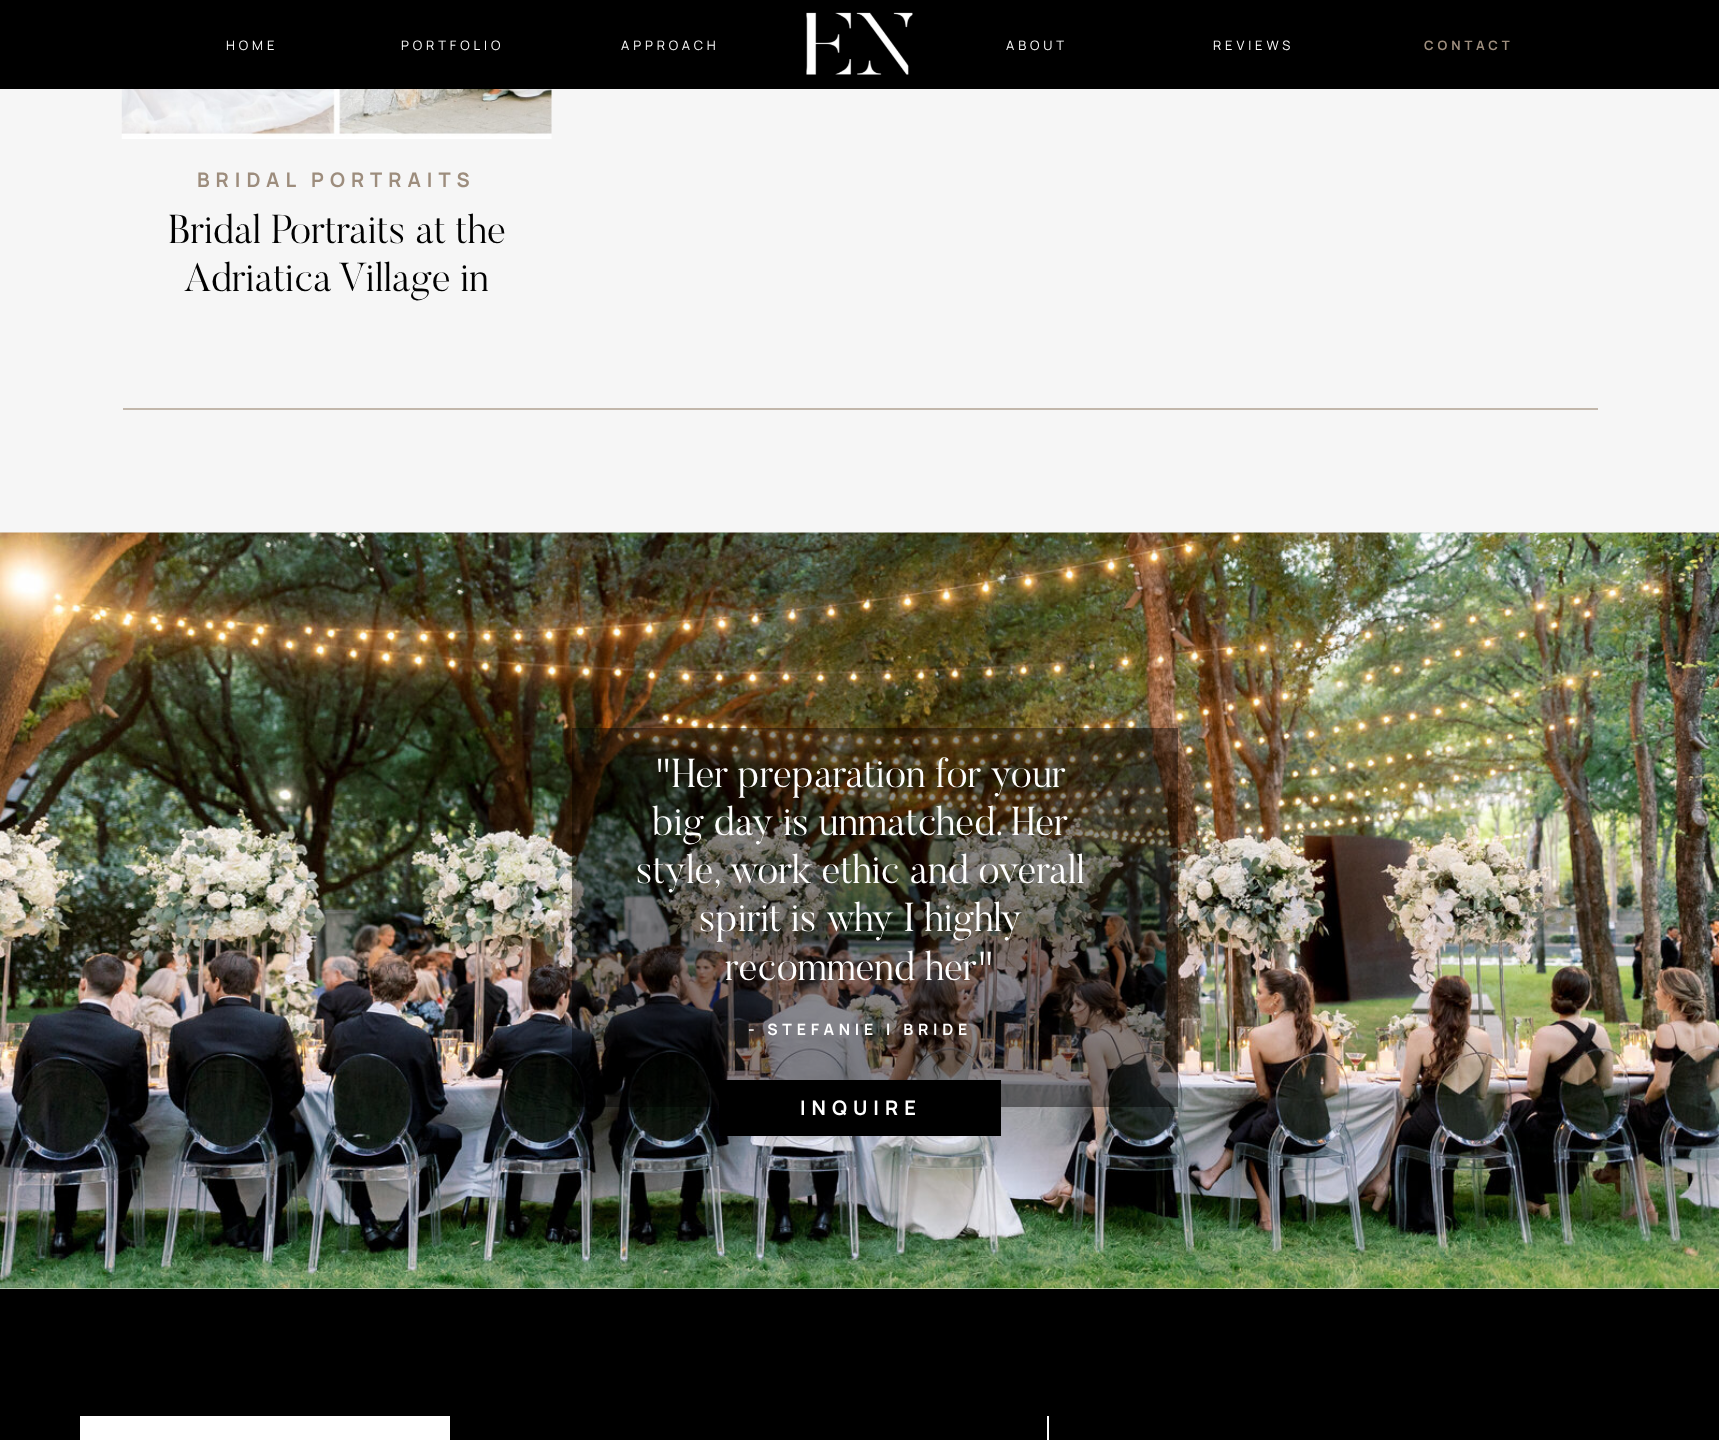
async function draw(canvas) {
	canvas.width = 1719;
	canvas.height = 1440;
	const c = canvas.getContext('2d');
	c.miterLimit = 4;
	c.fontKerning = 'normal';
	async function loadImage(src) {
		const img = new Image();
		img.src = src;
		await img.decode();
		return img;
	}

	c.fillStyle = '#fff';
	c.fillRect(0, 0, 1719, 1440);
	c.fillStyle = '#000';
	c.fillRect(0, 0, 1719, 89);
	c.letterSpacing = '3.9px';
	c.font = '13px Manrope';
	c.fillStyle = '#fff';
	for (const [text, x, y] of [
		['HOME', 226, 50],
		['PORTFOLIO', 401, 50],
		['APPROACH', 621, 50],
	]) {
		c.fillText(text, x, y);
	}
	c.drawImage(await loadImage('img1.png'), 806, 12, 107, 63);
	c.fillText('ABOUT', 1006, 50);
	c.fillText('REVIEWS', 1213, 50);
	c.font = 'bold 13px Manrope';
	c.fillStyle = '#9d8d7d';
	c.fillText('CONTACT', 1424, 50);
	c.fillStyle = '#f6f6f6';
	c.fillRect(0, 89, 1719, 444);
	c.drawImage(await loadImage('img2.png'), 121, 89, 431, 50);
	c.letterSpacing = '6px';
	c.font = 'bold 20px Manrope';
	c.fillStyle = '#9d8d7d';
	c.fillText('BRIDAL PORTRAITS', 197, 187);
	c.letterSpacing = '0px';
	c.font = '300 40.1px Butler';
	c.fillStyle = '#000';
	c.fillText('Bridal Portraits at the', 168, 243);
	c.fillText('Adriatica Village in', 184, 291);
	c.fillStyle = '#c2b7ab';
	c.fillRect(123, 408, 1475, 2);
	c.drawImage(await loadImage('img3.png'), 0, 532, 1719, 757);
	c.fillStyle = '#00000070';
	c.fillRect(572, 728, 606, 379);
	c.fillStyle = '#fff';
	for (const [text, x, y] of [
		['"Her preparation for your', 654, 787],
		['big day is unmatched. Her', 652, 835],
		['style, work ethic and overall', 636, 883],
		['spirit is why I highly', 699, 931],
		['recommend her"', 725, 980],
	]) {
		c.fillText(text, x, y);
	}
	c.letterSpacing = '4.75px';
	c.font = 'bold 15.75px Manrope';
	c.fillText('- STEFANIE | BRIDE', 748, 1035);
	c.fillStyle = '#000';
	c.fillRect(719, 1080, 282, 56);
	c.letterSpacing = '6px';
	c.font = 'bold 20px Manrope';
	c.fillStyle = '#fff';
	c.fillText('INQUIRE', 800, 1115);
	for (const [x, y, w, h, color] of [
		[0, 1289, 1719, 151, '#000'],
		[80, 1416, 370, 24, '#fff'],
		[1047, 1416, 2, 24, '#fff'],
	]) {
		c.fillStyle = color;
		c.fillRect(x, y, w, h);
	}
}

draw(document.querySelector('canvas'));
